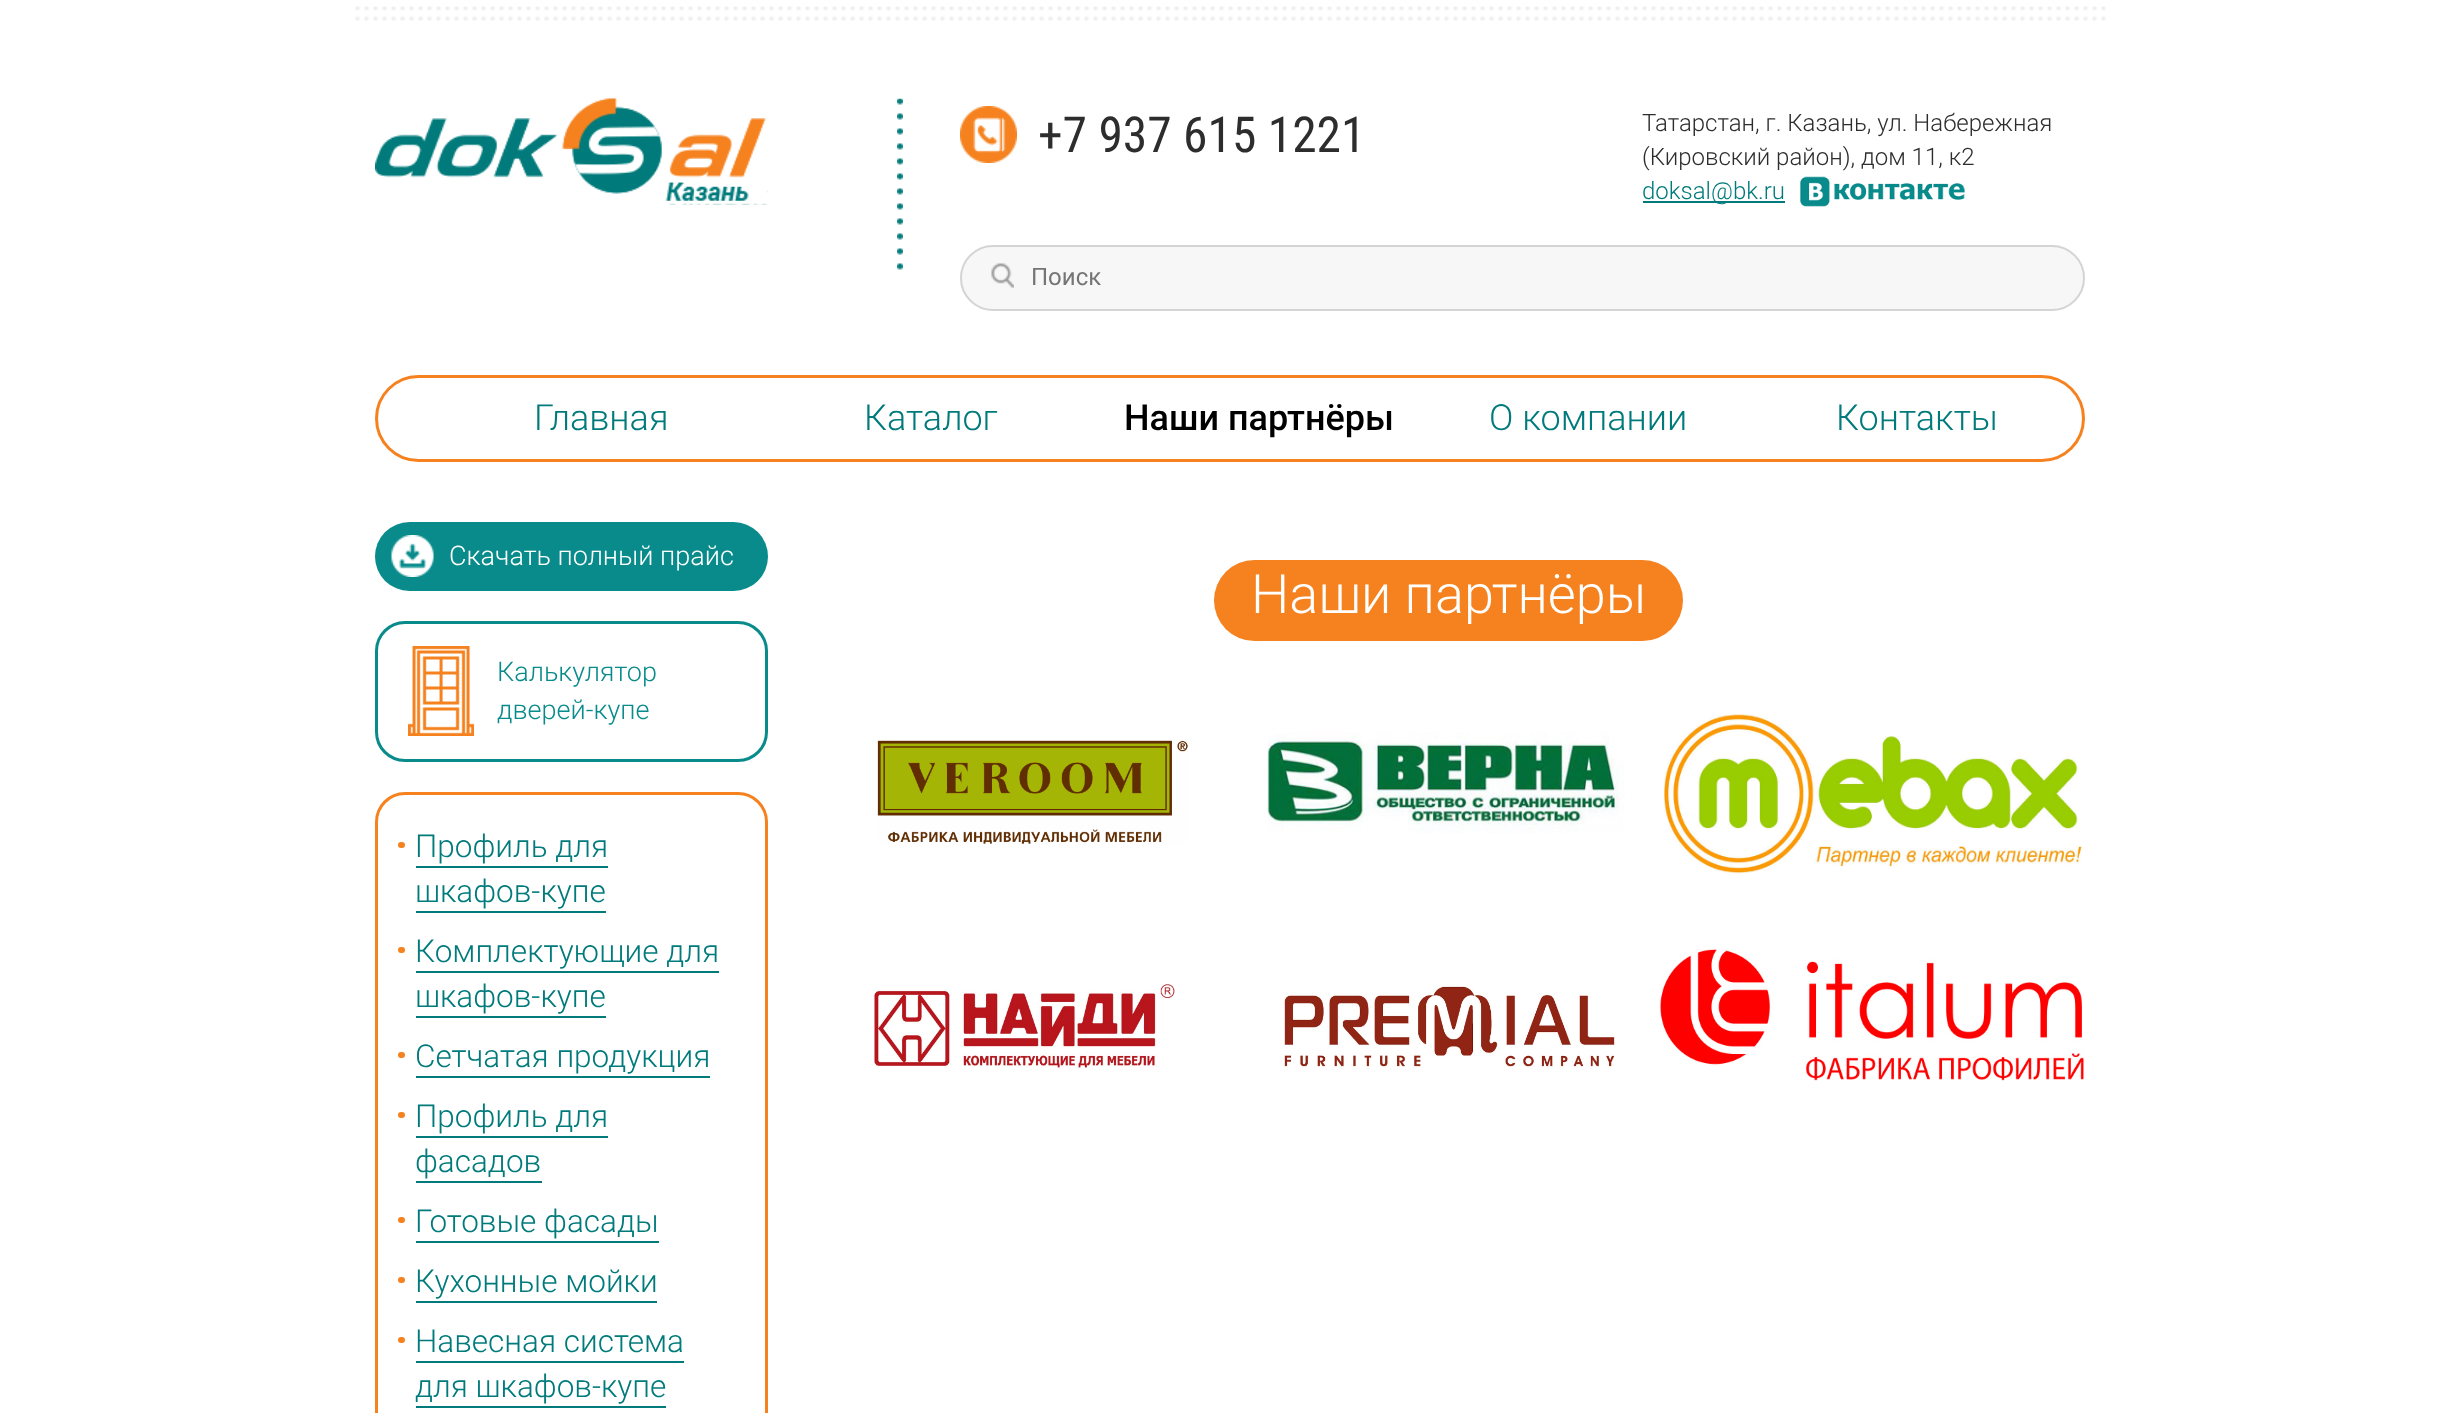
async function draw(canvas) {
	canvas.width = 2458;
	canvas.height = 1413;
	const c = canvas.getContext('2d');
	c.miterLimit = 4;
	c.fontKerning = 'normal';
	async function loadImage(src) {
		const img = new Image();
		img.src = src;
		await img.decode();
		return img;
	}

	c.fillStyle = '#fff';
	c.fillRect(0, 0, 2458, 1413);
	c.drawImage(await loadImage('img1.png'), 355, 6, 1751, 15);
	c.drawImage(await loadImage('img2.png'), 375, 98, 393, 107);
	c.drawImage(await loadImage('img3.png'), 897, 98, 6, 172);
	c.drawImage(await loadImage('img4.png'), 960, 106, 57, 57);
	c.font = '49.5px Roboto Condensed';
	c.fillStyle = '#2d2d2d';
	c.fillText('+7 937 615 1221', 1038, 152);
	c.font = '300 24px Roboto';
	c.fillText('Татарстан, г. Казань, ул. Набережная', 1642, 131);
	c.fillText('(Кировский район), дом 11, к2', 1642, 165);
	c.fillStyle = '#007a7b';
	c.fillRect(1643, 201, 142, 2);
	c.fillText('doksal@bk.ru', 1642, 199);
	c.drawImage(await loadImage('img5.png'), 1800, 176, 165, 31);
	c.fillStyle = '#f7f7f7';
	c.beginPath();
	c.roundRect(960, 245, 1125, 66, 33);
	c.fill();
	c.drawImage(await loadImage('img6.png'), 991, 263, 23, 25);
	c.beginPath();
	c.roundRect(961, 246, 1123, 64, 32);
	c.strokeStyle = '#d4d4d4';
	c.lineWidth = 2;
	c.stroke();
	c.font = '24px Roboto';
	c.fillStyle = '#757575';
	c.fillText('Поиск', 1031, 285);
	c.beginPath();
	c.roundRect(376.5, 376.5, 1707, 84, 42);
	c.strokeStyle = '#f5821f';
	c.lineWidth = 3;
	c.stroke();
	c.font = '300 36px Roboto';
	c.fillStyle = '#007a7b';
	c.fillText('Главная', 534, 430);
	c.fillText('Каталог', 864, 430);
	c.font = '500 36px Roboto';
	c.fillStyle = '#000';
	c.fillText('Наши партнёры', 1124, 430);
	c.font = '300 36px Roboto';
	c.fillStyle = '#007a7b';
	c.fillText('О компании', 1489, 430);
	c.fillText('Контакты', 1836, 430);
	c.fillStyle = '#098b8c';
	c.beginPath();
	c.roundRect(375, 522, 393, 69, 34.5);
	c.fill();
	c.drawImage(await loadImage('img7.png'), 391, 535, 43, 42);
	c.font = '300 27px Roboto';
	c.fillStyle = '#fff';
	c.fillText('Скачать полный прайс', 449, 565);
	c.beginPath();
	c.roundRect(376.5, 622.5, 390, 138, 28.5);
	c.strokeStyle = '#098b8c';
	c.stroke();
	c.drawImage(await loadImage('img8.png'), 408, 646, 66, 90);
	c.fillStyle = '#098b8c';
	c.fillText('Калькулятор', 497, 681);
	c.fillText('дверей-купе', 497, 719);
	c.beginPath();
	c.roundRect(376.5, 793.5, 390, 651, 28.5);
	c.strokeStyle = '#f5821f';
	c.stroke();
	c.fillStyle = '#f5821f';
	c.beginPath();
	c.roundRect(398, 842, 7, 6, 3);
	c.fill();
	c.font = '300 31.5px Roboto';
	c.fillStyle = '#007a7b';
	c.fillText('Профиль для', 415, 857);
	c.fillRect(416, 866, 192, 2);
	c.fillText('шкафов-купе', 415, 902);
	c.fillRect(416, 911, 190, 2);
	c.fillStyle = '#f5821f';
	c.beginPath();
	c.roundRect(398, 947, 7, 6, 3);
	c.fill();
	c.fillStyle = '#007a7b';
	c.fillText('Комплектующие для', 415, 962);
	c.fillRect(416, 971, 303, 2);
	c.fillText('шкафов-купе', 415, 1007);
	c.fillRect(416, 1016, 190, 2);
	c.fillStyle = '#f5821f';
	c.beginPath();
	c.roundRect(398, 1052, 7, 6, 3);
	c.fill();
	c.fillStyle = '#007a7b';
	c.fillText('Сетчатая продукция', 415, 1067);
	c.fillRect(416, 1076, 294, 2);
	c.fillStyle = '#f5821f';
	c.beginPath();
	c.roundRect(398, 1112, 7, 6, 3);
	c.fill();
	c.fillStyle = '#007a7b';
	c.fillText('Профиль для', 415, 1127);
	c.fillRect(416, 1136, 192, 2);
	c.fillText('фасадов', 415, 1172);
	c.fillRect(416, 1181, 126, 2);
	c.fillStyle = '#f5821f';
	c.beginPath();
	c.roundRect(398, 1217, 7, 6, 3);
	c.fill();
	c.fillStyle = '#007a7b';
	c.fillText('Готовые фасады', 415, 1232);
	c.fillRect(416, 1241, 243, 2);
	c.fillStyle = '#f5821f';
	c.beginPath();
	c.roundRect(398, 1277, 7, 6, 3);
	c.fill();
	c.fillStyle = '#007a7b';
	c.fillText('Кухонные мойки', 415, 1292);
	c.fillRect(416, 1301, 241, 2);
	c.fillStyle = '#f5821f';
	c.beginPath();
	c.roundRect(398, 1337, 7, 6, 3);
	c.fill();
	c.fillStyle = '#007a7b';
	c.fillText('Навесная система', 415, 1352);
	c.fillRect(416, 1361, 268, 2);
	c.fillText('для шкафов-купе', 415, 1397);
	c.fillRect(416, 1406, 250, 2);
	c.fillStyle = '#f5821f';
	c.beginPath();
	c.roundRect(1214, 560, 469, 81, 40.5);
	c.fill();
	c.font = '300 54px Roboto';
	c.fillStyle = '#fff';
	c.fillText('Наши партнёры', 1251, 613);
	c.drawImage(await loadImage('img9.png'), 877, 740, 311, 104);
	c.drawImage(await loadImage('img10.png'), 1267, 732, 358, 101);
	c.drawImage(await loadImage('img11.png'), 1664, 714, 418, 160);
	c.drawImage(await loadImage('img12.png'), 874, 984, 301, 85);
	c.drawImage(await loadImage('img13.png'), 1284, 986, 331, 84);
	c.drawImage(await loadImage('img14.png'), 1660, 949, 424, 132);
}

draw(document.querySelector('canvas'));
